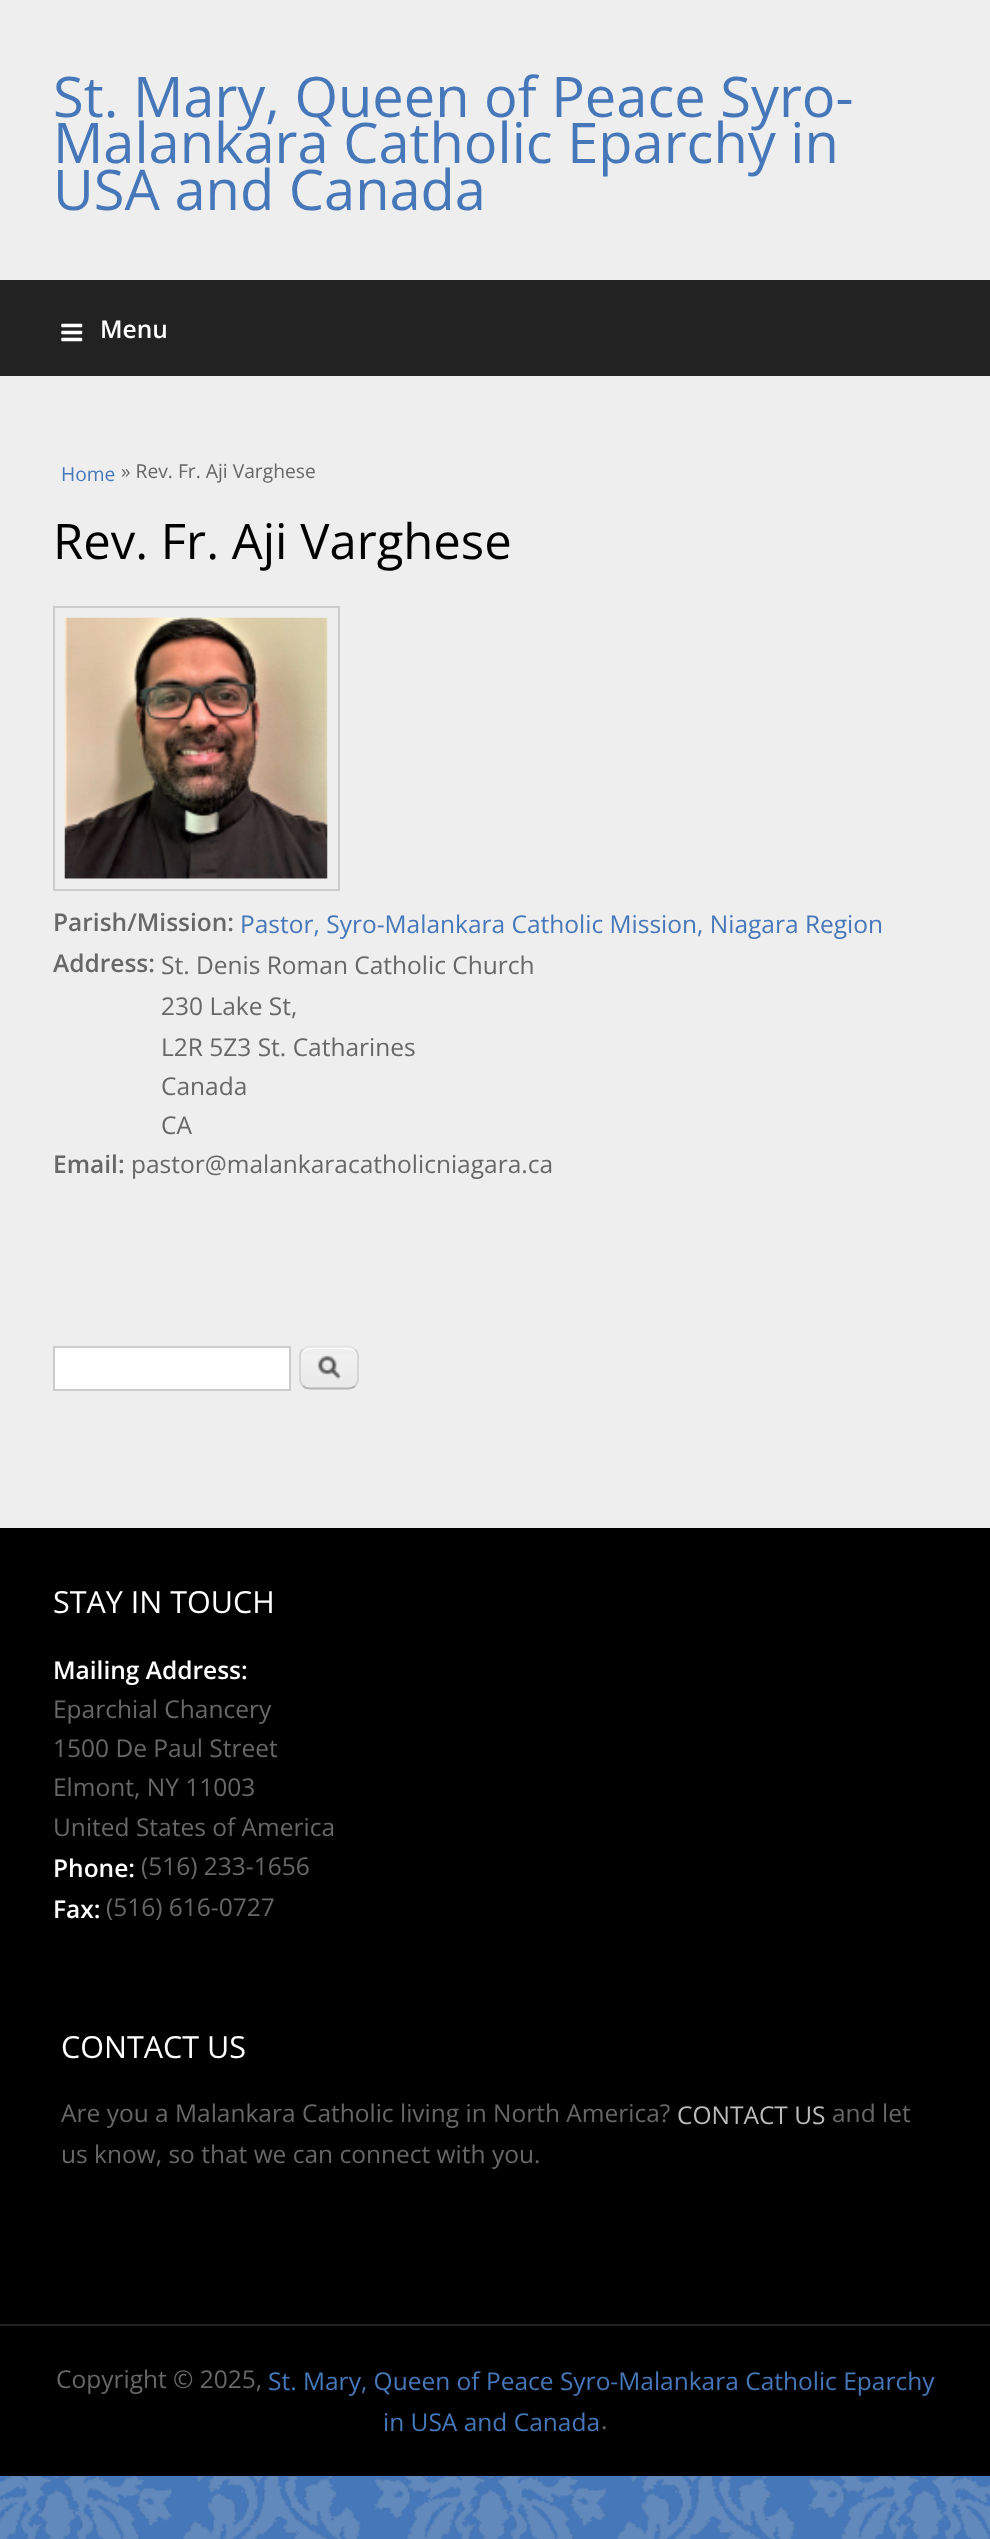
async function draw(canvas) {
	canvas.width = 990;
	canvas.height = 2539;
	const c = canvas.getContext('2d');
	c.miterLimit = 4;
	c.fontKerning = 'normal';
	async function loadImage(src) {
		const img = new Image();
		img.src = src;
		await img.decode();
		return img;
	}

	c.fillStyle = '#4677b9';
	c.fillRect(0, 0, 990, 2539);
	c.drawImage(await loadImage('img1.png'), 0, 2476, 990, 63);
	c.fillStyle = '#eee';
	c.fillRect(0, 0, 990, 1528);
	c.font = '56px Open Sans';
	c.fillStyle = '#4677b9';
	for (const [text, x, y] of [
		['St. Mary, Queen of Peace Syro-', 53, 117],
		['Malankara Catholic Eparchy in', 53, 163],
		['USA and Canada', 53, 210],
	]) {
		c.fillText(text, x, y);
	}
	c.fillStyle = '#222';
	c.fillRect(0, 280, 990, 96);
	c.drawImage(await loadImage('img2.png'), 61, 323, 22, 19);
	c.font = '600 24.5px Open Sans';
	c.fillStyle = '#fff';
	c.fillText('Menu', 100, 338);
	c.font = '19.25px Open Sans';
	c.fillStyle = '#4677b9';
	c.fillText('Home', 61, 481);
	c.fillStyle = '#676767';
	c.fillText('» Rev. Fr. Aji Varghese', 121, 478);
	c.font = '49px Open Sans';
	c.fillStyle = '#000';
	c.fillText('Rev. Fr. Aji Varghese', 53, 559);
	c.strokeStyle = '#ccc';
	c.lineWidth = 2;
	c.strokeRect(54, 607, 285, 283);
	c.drawImage(await loadImage('img3.png'), 64, 617, 264, 262);
	c.font = '600 24.5px Open Sans';
	c.fillStyle = '#676767';
	c.fillText('Parish/Mission:', 53, 931);
	c.font = '24.5px Open Sans';
	c.fillStyle = '#4677b9';
	c.fillText('Pastor, Syro-Malankara Catholic Mission, Niagara Region', 240, 933);
	c.font = '600 24.5px Open Sans';
	c.fillStyle = '#676767';
	c.fillText('Address:', 53, 972);
	c.font = '24.5px Open Sans';
	for (const [text, x, y] of [
		['St. Denis Roman Catholic Church', 161, 974],
		['230 Lake St,', 161, 1015],
		['L2R 5Z3 St. Catharines', 161, 1056],
		['Canada', 161, 1095],
		['CA', 161, 1134],
	]) {
		c.fillText(text, x, y);
	}
	c.font = '600 24.5px Open Sans';
	c.fillText('Email:', 53, 1173);
	c.font = '24.5px Open Sans';
	c.fillText('pastor@malankaracatholicniagara.ca', 131, 1173);
	c.fillStyle = '#fff';
	c.beginPath();
	c.rect(54, 1347, 236, 43);
	c.fill();
	c.stroke();
	c.drawImage(await loadImage('img4.png'), 301, 1355, 56, 34);
	c.beginPath();
	c.moveTo(310, 1349);
	c.lineTo(348, 1349);
	c.bezierCurveTo(353, 1349, 357, 1353, 357, 1358);
	c.bezierCurveTo(357, 1348, 350, 1348, 342, 1348);
	c.lineTo(316, 1348);
	c.bezierCurveTo(308, 1348, 301, 1348, 301, 1358);
	c.bezierCurveTo(301, 1353, 305, 1349, 310, 1349);
	c.closePath();
	c.fill();
	c.beginPath();
	c.moveTo(303, 1349.5);
	c.bezierCurveTo(304.5, 1347.5, 307, 1346.5, 310, 1346.5);
	c.lineTo(348, 1346.5);
	c.bezierCurveTo(351, 1346.5, 353.5, 1347.5, 355, 1349.5);
	c.strokeStyle = '#e4e4e4';
	c.lineWidth = 1.8;
	c.stroke();
	c.beginPath();
	c.moveTo(355, 1349.5);
	c.bezierCurveTo(357, 1351, 358, 1353.5, 358, 1356);
	c.lineTo(358, 1379);
	c.bezierCurveTo(358, 1381.5, 357, 1384, 355, 1386);
	c.strokeStyle = '#d2d2d2';
	c.stroke();
	c.beginPath();
	c.moveTo(355, 1386);
	c.bezierCurveTo(353.5, 1387.5, 351, 1388.5, 348, 1388.5);
	c.lineTo(310, 1388.5);
	c.bezierCurveTo(307, 1388.5, 304.5, 1387.5, 303, 1386);
	c.strokeStyle = '#b4b4b4';
	c.stroke();
	c.beginPath();
	c.moveTo(303, 1386);
	c.bezierCurveTo(301, 1384, 300, 1381.5, 300, 1379);
	c.lineTo(300, 1356);
	c.bezierCurveTo(300, 1353.5, 301, 1351, 303, 1349.5);
	c.strokeStyle = '#d2d2d2';
	c.stroke();
	c.fillStyle = '#000';
	c.fillRect(0, 1528, 990, 796);
	c.font = '30.5px Open Sans';
	c.fillStyle = '#fff';
	c.fillText('STAY IN TOUCH', 53, 1613);
	c.font = '600 24.5px Open Sans';
	c.fillText('Mailing Address:', 53, 1679);
	c.font = '24.5px Open Sans';
	c.fillStyle = '#676767';
	for (const [text, x, y] of [
		['Eparchial Chancery', 53, 1718],
		['1500 De Paul Street', 53, 1757],
		['Elmont, NY 11003', 53, 1796],
		['United States of America', 53, 1836],
	]) {
		c.fillText(text, x, y);
	}
	c.font = '600 24.5px Open Sans';
	c.fillStyle = '#fff';
	c.fillText('Phone:', 53, 1877);
	c.font = '24.5px Open Sans';
	c.fillStyle = '#676767';
	c.fillText('(516) 233-1656', 141, 1875);
	c.font = '600 24.5px Open Sans';
	c.fillStyle = '#fff';
	c.fillText('Fax:', 53, 1918);
	c.font = '24.5px Open Sans';
	c.fillStyle = '#676767';
	c.fillText('(516) 616-0727', 106, 1916);
	c.font = '30.5px Open Sans';
	c.fillStyle = '#fff';
	c.fillText('CONTACT US', 61, 2058);
	c.font = '24.5px Open Sans';
	c.fillStyle = '#676767';
	c.fillText('Are you a Malankara Catholic living in North America?', 61, 2122);
	c.fillStyle = '#bbb';
	c.fillText('CONTACT US', 677, 2124);
	c.fillStyle = '#676767';
	c.fillText('and let', 832, 2122);
	c.fillText('us know, so that we can connect with you.', 61, 2163);
	c.fillStyle = '#000';
	c.fillRect(0, 2326, 990, 150);
	c.fillStyle = '#222';
	c.fillRect(0, 2324, 990, 2);
	c.fillStyle = '#676767';
	c.fillText('Copyright © 2025,', 56, 2388);
	c.fillStyle = '#4677b9';
	c.fillText('St. Mary, Queen of Peace Syro-Malankara Catholic Eparchy', 268, 2390);
	c.fillText('in USA and Canada', 383, 2431);
	c.fillStyle = '#676767';
	c.fillText('.', 601, 2429);
}

draw(document.querySelector('canvas'));
